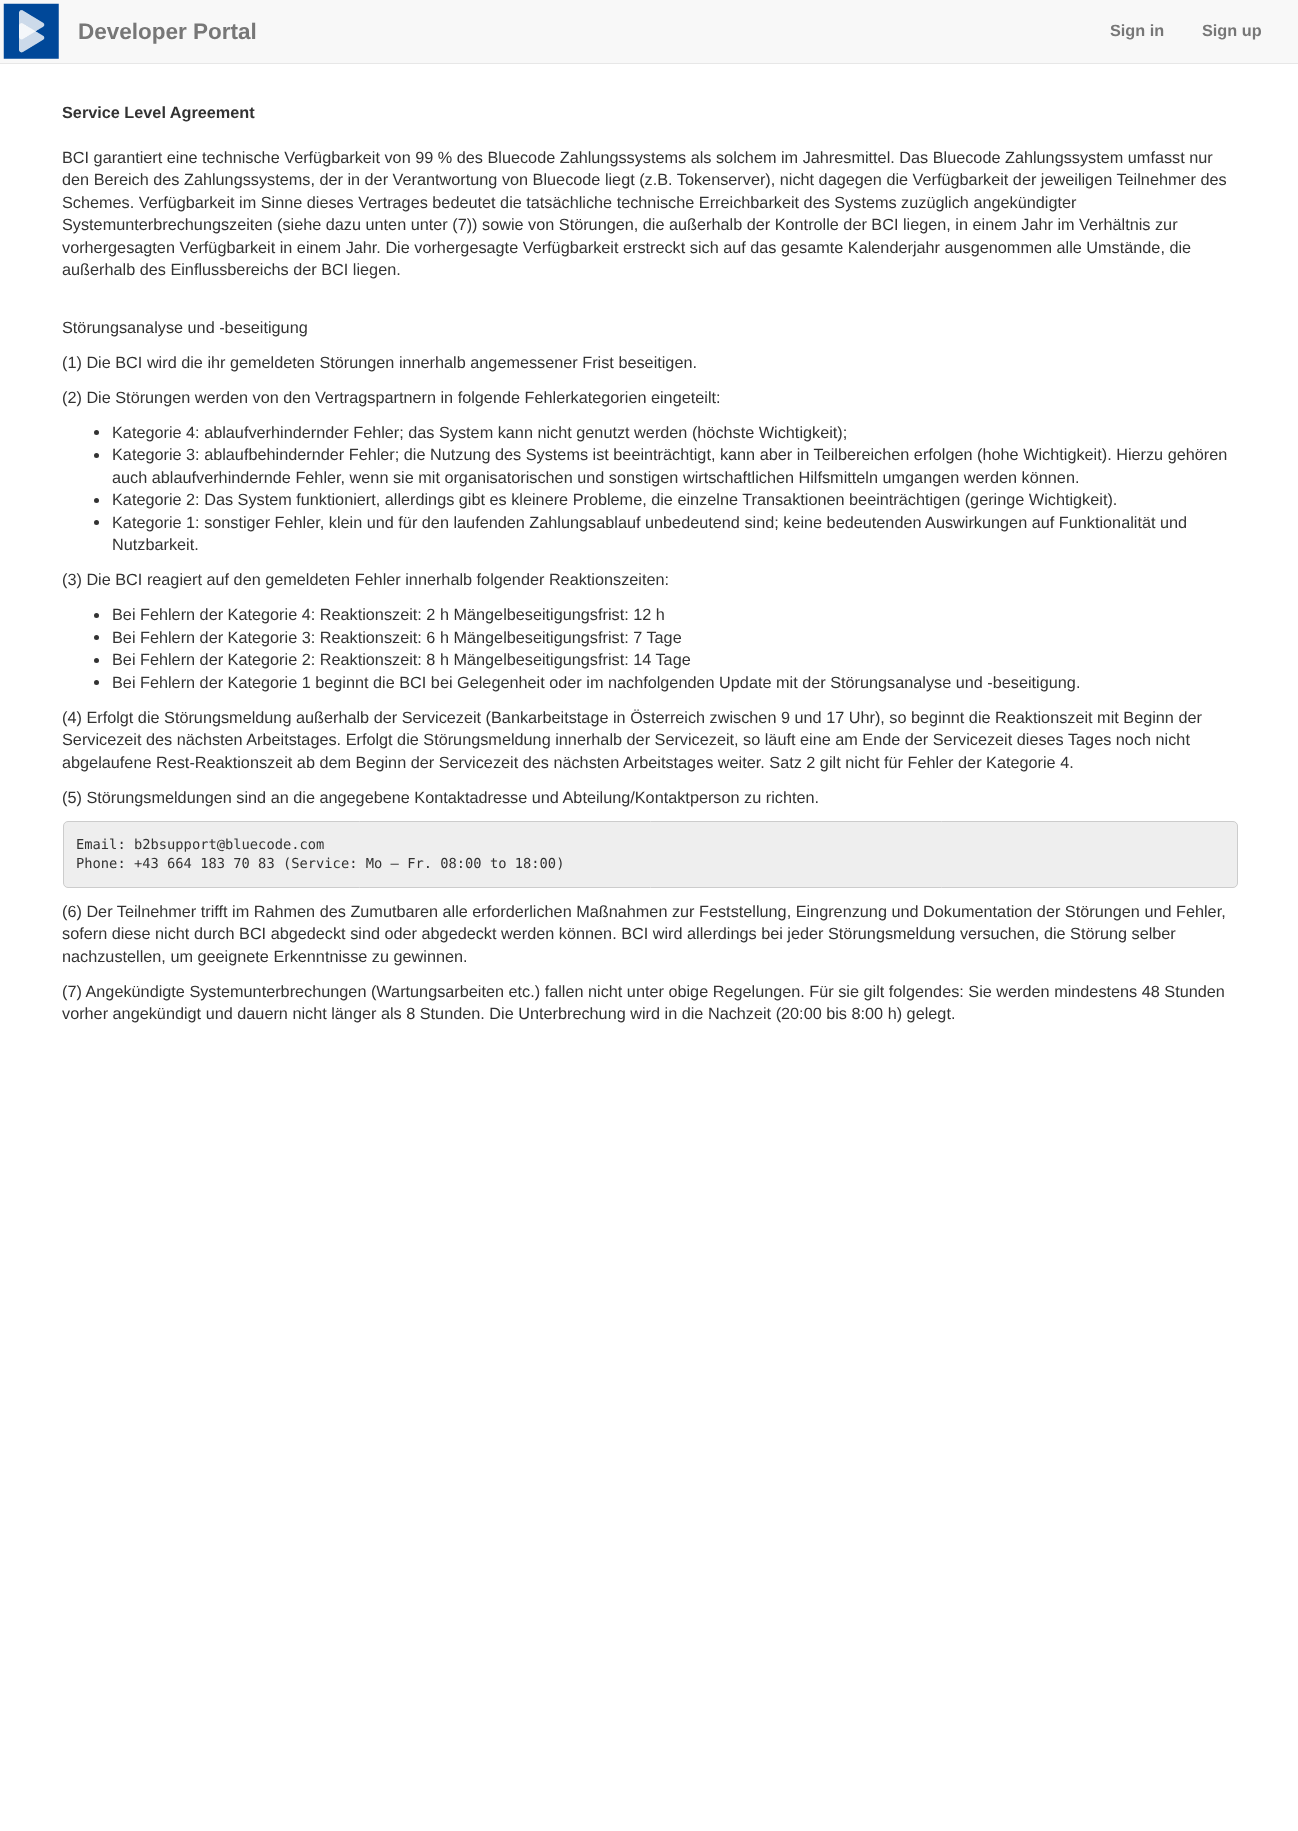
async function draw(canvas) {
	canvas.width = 1298;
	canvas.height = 1831;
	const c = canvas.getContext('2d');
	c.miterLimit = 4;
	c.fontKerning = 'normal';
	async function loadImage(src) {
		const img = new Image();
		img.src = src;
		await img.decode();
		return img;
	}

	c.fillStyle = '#fff';
	c.fillRect(0, 0, 1298, 1831);
	c.fillStyle = '#f8f8f8';
	c.fillRect(0, 0, 1298, 63);
	c.fillStyle = '#e7e7e7';
	c.fillRect(0, 63, 1298, 1);
	c.drawImage(await loadImage('img1.png'), 3, 3, 56, 56);
	c.font = 'bold 22.5px Liberation Sans';
	c.fillStyle = '#777';
	c.fillText('Developer Portal', 78, 39);
	c.font = 'bold 16.25px Liberation Sans';
	c.fillText('Sign in', 1110, 36);
	c.fillText('Sign up', 1202, 36);
	c.fillStyle = '#333';
	c.fillText('Service Level Agreement', 62, 118);
	c.font = '16.25px Liberation Sans';
	for (const [text, x, y] of [
		['BCI garantiert eine technische Verfügbarkeit von 99 % des Bluecode Zahlungssystems als solchem im Jahresmittel. Das Bluecode Zahlungssystem umfasst nur', 62, 163],
		['den Bereich des Zahlungssystems, der in der Verantwortung von Bluecode liegt (z.B. Tokenserver), nicht dagegen die Verfügbarkeit der jeweiligen Teilnehmer des', 62, 185],
		['Schemes. Verfügbarkeit im Sinne dieses Vertrages bedeutet die tatsächliche technische Erreichbarkeit des Systems zuzüglich angekündigter', 62, 208],
		['Systemunterbrechungszeiten (siehe dazu unten unter (7)) sowie von Störungen, die außerhalb der Kontrolle der BCI liegen, in einem Jahr im Verhältnis zur', 62, 230],
		['vorhergesagten Verfügbarkeit in einem Jahr. Die vorhergesagte Verfügbarkeit erstreckt sich auf das gesamte Kalenderjahr ausgenommen alle Umstände, die', 62, 253],
		['außerhalb des Einflussbereichs der BCI liegen.', 62, 275],
		['Störungsanalyse und -beseitigung', 62, 333],
		['(1) Die BCI wird die ihr gemeldeten Störungen innerhalb angemessener Frist beseitigen.', 62, 368],
		['(2) Die Störungen werden von den Vertragspartnern in folgende Fehlerkategorien eingeteilt:', 62, 403],
	]) {
		c.fillText(text, x, y);
	}
	c.beginPath();
	c.arc(96.5, 432.5, 2.5, 0, 2 * Math.PI);
	c.fill();
	c.fillText('Kategorie 4: ablaufverhindernder Fehler; das System kann nicht genutzt werden (höchste Wichtigkeit);', 112, 438);
	c.beginPath();
	c.arc(96.5, 455.5, 2.5, 0, 2 * Math.PI);
	c.fill();
	c.fillText('Kategorie 3: ablaufbehindernder Fehler; die Nutzung des Systems ist beeinträchtigt, kann aber in Teilbereichen erfolgen (hohe Wichtigkeit). Hierzu gehören', 112, 460);
	c.fillText('auch ablaufverhindernde Fehler, wenn sie mit organisatorischen und sonstigen wirtschaftlichen Hilfsmitteln umgangen werden können.', 112, 483);
	c.beginPath();
	c.arc(96.5, 500.5, 2.5, 0, 2 * Math.PI);
	c.fill();
	c.fillText('Kategorie 2: Das System funktioniert, allerdings gibt es kleinere Probleme, die einzelne Transaktionen beeinträchtigen (geringe Wichtigkeit).', 112, 505);
	c.beginPath();
	c.arc(96.5, 522.5, 2.5, 0, 2 * Math.PI);
	c.fill();
	for (const [text, x, y] of [
		['Kategorie 1: sonstiger Fehler, klein und für den laufenden Zahlungsablauf unbedeutend sind; keine bedeutenden Auswirkungen auf Funktionalität und', 112, 528],
		['Nutzbarkeit.', 112, 550],
		['(3) Die BCI reagiert auf den gemeldeten Fehler innerhalb folgender Reaktionszeiten:', 62, 585],
	]) {
		c.fillText(text, x, y);
	}
	c.beginPath();
	c.arc(96.5, 615.5, 2.5, 0, 2 * Math.PI);
	c.fill();
	c.fillText('Bei Fehlern der Kategorie 4: Reaktionszeit: 2 h Mängelbeseitigungsfrist: 12 h', 112, 620);
	c.beginPath();
	c.arc(96.5, 637.5, 2.5, 0, 2 * Math.PI);
	c.fill();
	c.fillText('Bei Fehlern der Kategorie 3: Reaktionszeit: 6 h Mängelbeseitigungsfrist: 7 Tage', 112, 643);
	c.beginPath();
	c.arc(96.5, 660.5, 2.5, 0, 2 * Math.PI);
	c.fill();
	c.fillText('Bei Fehlern der Kategorie 2: Reaktionszeit: 8 h Mängelbeseitigungsfrist: 14 Tage', 112, 665);
	c.beginPath();
	c.arc(96.5, 682.5, 2.5, 0, 2 * Math.PI);
	c.fill();
	for (const [text, x, y] of [
		['Bei Fehlern der Kategorie 1 beginnt die BCI bei Gelegenheit oder im nachfolgenden Update mit der Störungsanalyse und -beseitigung.', 112, 688],
		['(4) Erfolgt die Störungsmeldung außerhalb der Servicezeit (Bankarbeitstage in Österreich zwischen 9 und 17 Uhr), so beginnt die Reaktionszeit mit Beginn der', 62, 723],
		['Servicezeit des nächsten Arbeitstages. Erfolgt die Störungsmeldung innerhalb der Servicezeit, so läuft eine am Ende der Servicezeit dieses Tages noch nicht', 62, 745],
		['abgelaufene Rest-Reaktionszeit ab dem Beginn der Servicezeit des nächsten Arbeitstages weiter. Satz 2 gilt nicht für Fehler der Kategorie 4.', 62, 768],
		['(5) Störungsmeldungen sind an die angegebene Kontaktadresse und Abteilung/Kontaktperson zu richten.', 62, 803],
	]) {
		c.fillText(text, x, y);
	}
	c.fillStyle = '#eee';
	c.beginPath();
	c.roundRect(63.5, 821.5, 1174, 66, 4.5);
	c.fill();
	c.strokeStyle = '#ccc';
	c.stroke();
	c.font = '13.75px DejaVu Sans Mono';
	c.fillStyle = '#333';
	c.fillText('Email: b2bsupport@bluecode.com', 76, 849);
	c.fillText('Phone: +43 664 183 70 83 (Service: Mo – Fr. 08:00 to 18:00)', 76, 868);
	c.font = '16.25px Liberation Sans';
	for (const [text, x, y] of [
		['(6) Der Teilnehmer trifft im Rahmen des Zumutbaren alle erforderlichen Maßnahmen zur Feststellung, Eingrenzung und Dokumentation der Störungen und Fehler,', 62, 917],
		['sofern diese nicht durch BCI abgedeckt sind oder abgedeckt werden können. BCI wird allerdings bei jeder Störungsmeldung versuchen, die Störung selber', 62, 939],
		['nachzustellen, um geeignete Erkenntnisse zu gewinnen.', 62, 962],
		['(7) Angekündigte Systemunterbrechungen (Wartungsarbeiten etc.) fallen nicht unter obige Regelungen. Für sie gilt folgendes: Sie werden mindestens 48 Stunden', 62, 997],
		['vorher angekündigt und dauern nicht länger als 8 Stunden. Die Unterbrechung wird in die Nachzeit (20:00 bis 8:00 h) gelegt.', 62, 1019],
	]) {
		c.fillText(text, x, y);
	}
}

draw(document.querySelector('canvas'));
